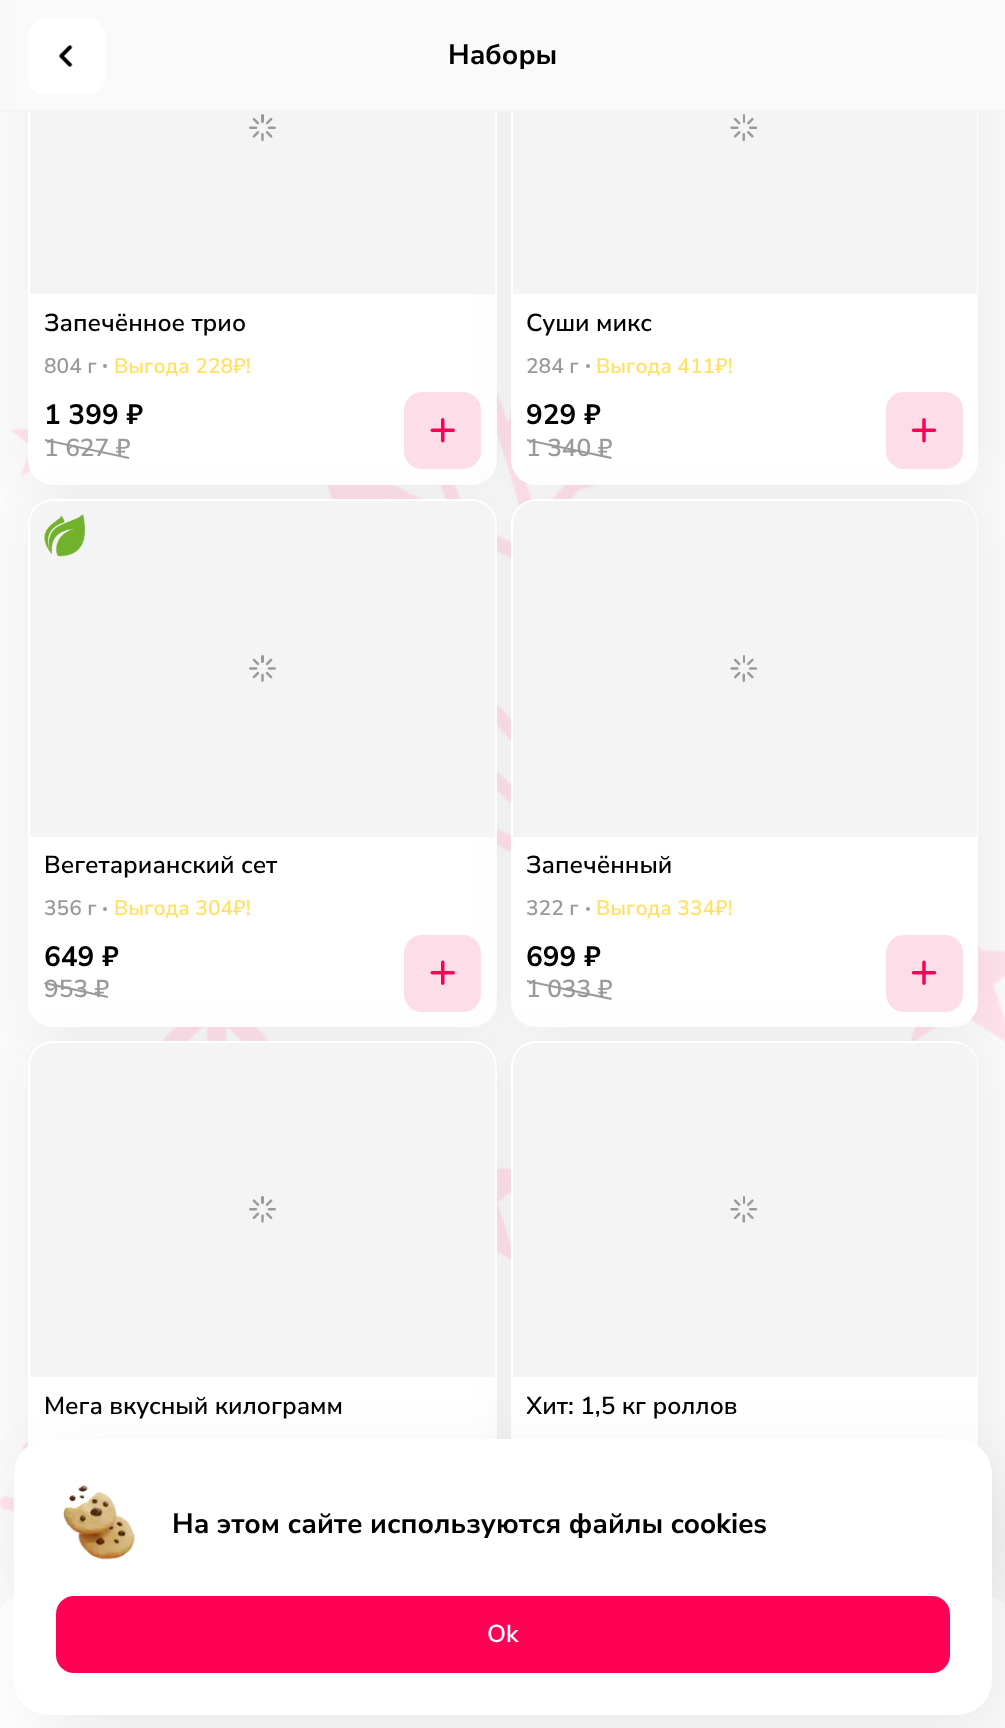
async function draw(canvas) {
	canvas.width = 1005;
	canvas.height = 1728;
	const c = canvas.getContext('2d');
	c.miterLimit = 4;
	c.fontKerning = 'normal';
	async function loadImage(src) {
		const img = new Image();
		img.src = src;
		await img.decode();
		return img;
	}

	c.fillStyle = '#fafafa';
	c.fillRect(0, 0, 1005, 1728);
	c.drawImage(await loadImage('img1.png'), 0, 389, 1005, 1124);
	c.fillStyle = '#0000000d';
	c.filter = 'blur(26px)';
	c.beginPath();
	c.roundRect(35, -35, 469, 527, 25);
	c.fill();
	c.filter = 'none';
	c.fillStyle = '#fff';
	c.beginPath();
	c.roundRect(28, -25, 469, 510, 25);
	c.fill();
	c.fillStyle = '#0000000d';
	c.filter = 'blur(26px)';
	c.beginPath();
	c.roundRect(518, -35, 467, 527, 25);
	c.fill();
	c.filter = 'none';
	c.fillStyle = '#fff';
	c.beginPath();
	c.roundRect(511, -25, 467, 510, 25);
	c.fill();
	c.fillStyle = '#fafafa';
	c.fillRect(14, 0, 991, 110);
	c.fillStyle = '#f4f4f4';
	c.fillRect(0, 110, 1005, 2);
	c.fillStyle = '#fff';
	c.beginPath();
	c.roundRect(28, 18, 77, 77, 18);
	c.fill();
	c.drawImage(await loadImage('img2.png'), 59, 45, 14, 22);
	c.font = 'bold 28px Nunito Sans';
	c.fillStyle = '#000';
	c.fillText('Наборы', 448, 64);
	c.fillStyle = '#f4f4f4';
	c.fillRect(30, 112, 465, 182);
	c.drawImage(await loadImage('img3.png'), 249, 114, 27, 28);
	c.font = '600 24.5px Nunito Sans';
	c.fillStyle = '#000';
	c.fillText('Запечённое трио', 44, 331);
	c.font = '600 21px Nunito Sans';
	c.fillStyle = '#999';
	c.fillText('804 г', 44, 373);
	c.beginPath();
	c.arc(105, 366, 2, 0, 2 * Math.PI);
	c.fill();
	c.fillStyle = '#ffe167';
	c.fillText('Выгода 228₽!', 114, 373);
	c.font = 'bold 28px Nunito Sans';
	c.fillStyle = '#000';
	c.fillText('1 399 ₽', 44, 424);
	c.fillStyle = '#0000000d';
	c.filter = 'blur(26px)';
	c.beginPath();
	c.roundRect(35, 506, 469, 528, 25);
	c.fill();
	c.filter = 'none';
	c.font = '600 24.5px Nunito Sans';
	c.fillStyle = '#999';
	c.fillText('1 627 ₽', 44, 456);
	c.beginPath();
	c.moveTo(45, 439);
	c.lineTo(129, 457);
	c.lineTo(129, 459);
	c.lineTo(45, 441);
	c.closePath();
	c.fill();
	c.fillStyle = '#fff';
	c.beginPath();
	c.roundRect(28, 499, 469, 528, 25);
	c.fill();
	c.fillStyle = '#0000000d';
	c.filter = 'blur(26px)';
	c.beginPath();
	c.roundRect(518, 506, 467, 528, 25);
	c.fill();
	c.filter = 'none';
	c.fillStyle = '#fddde8';
	c.beginPath();
	c.roundRect(404, 392, 77, 77, 18);
	c.fill();
	c.drawImage(await loadImage('img4.png'), 430, 418, 25, 25);
	c.fillStyle = '#f4f4f4';
	c.fillRect(513, 112, 464, 182);
	c.drawImage(await loadImage('img5.png'), 730, 114, 28, 28);
	c.fillStyle = '#000';
	c.fillText('Суши микс', 526, 331);
	c.font = '600 21px Nunito Sans';
	c.fillStyle = '#999';
	c.fillText('284 г', 526, 373);
	c.beginPath();
	c.arc(588, 366, 2, 0, 2 * Math.PI);
	c.fill();
	c.fillStyle = '#ffe167';
	c.fillText('Выгода 411₽!', 596, 373);
	c.font = 'bold 28px Nunito Sans';
	c.fillStyle = '#000';
	c.fillText('929 ₽', 526, 424);
	c.font = '600 24.5px Nunito Sans';
	c.fillStyle = '#999';
	c.fillText('1 340 ₽', 526, 456);
	c.beginPath();
	c.moveTo(527, 439);
	c.lineTo(612, 457);
	c.lineTo(611, 459);
	c.lineTo(527, 441);
	c.closePath();
	c.fill();
	c.fillStyle = '#fddde8';
	c.beginPath();
	c.roundRect(886, 392, 77, 77, 18);
	c.fill();
	c.drawImage(await loadImage('img6.png'), 911, 418, 26, 25);
	c.fillStyle = '#f4f4f4';
	c.beginPath();
	c.roundRect(30, 501, 465, 336, [23, 23, 0, 0]);
	c.fill();
	c.drawImage(await loadImage('img7.png'), 249, 655, 27, 27);
	c.drawImage(await loadImage('img8.png'), 44, 514, 41, 43);
	c.fillStyle = '#000';
	c.fillText('Вегетарианский сет', 44, 873);
	c.font = '600 21px Nunito Sans';
	c.fillStyle = '#999';
	c.fillText('356 г', 44, 915);
	c.beginPath();
	c.arc(105, 909, 2, 0, 2 * Math.PI);
	c.fill();
	c.fillStyle = '#ffe167';
	c.fillText('Выгода 304₽!', 114, 915);
	c.font = 'bold 28px Nunito Sans';
	c.fillStyle = '#000';
	c.fillText('649 ₽', 44, 966);
	c.fillStyle = '#fff';
	c.beginPath();
	c.roundRect(511, 499, 467, 528, 25);
	c.fill();
	c.fillStyle = '#0000000d';
	c.filter = 'blur(26px)';
	c.beginPath();
	c.roundRect(35, 1048, 469, 527, 25);
	c.fill();
	c.filter = 'none';
	c.font = '600 24.5px Nunito Sans';
	c.fillStyle = '#999';
	c.fillText('953 ₽', 44, 997);
	c.beginPath();
	c.moveTo(45, 982);
	c.lineTo(108, 996);
	c.lineTo(108, 998);
	c.lineTo(44, 984);
	c.closePath();
	c.fill();
	c.fillStyle = '#fff';
	c.beginPath();
	c.roundRect(28, 1041, 469, 527, 25);
	c.fill();
	c.fillStyle = '#0000000d';
	c.filter = 'blur(26px)';
	c.beginPath();
	c.roundRect(518, 1048, 467, 527, 25);
	c.fill();
	c.filter = 'none';
	c.fillStyle = '#fddde8';
	c.beginPath();
	c.roundRect(404, 935, 77, 77, 18);
	c.fill();
	c.drawImage(await loadImage('img9.png'), 430, 960, 25, 25);
	c.fillStyle = '#f4f4f4';
	c.beginPath();
	c.roundRect(513, 501, 464, 336, [23, 23, 0, 0]);
	c.fill();
	c.drawImage(await loadImage('img10.png'), 730, 655, 28, 27);
	c.fillStyle = '#000';
	c.fillText('Запечённый', 526, 873);
	c.font = '600 21px Nunito Sans';
	c.fillStyle = '#999';
	c.fillText('322 г', 526, 915);
	c.beginPath();
	c.arc(588, 909, 2, 0, 2 * Math.PI);
	c.fill();
	c.fillStyle = '#ffe167';
	c.fillText('Выгода 334₽!', 596, 915);
	c.font = 'bold 28px Nunito Sans';
	c.fillStyle = '#000';
	c.fillText('699 ₽', 526, 966);
	c.font = '600 24.5px Nunito Sans';
	c.fillStyle = '#999';
	c.fillText('1 033 ₽', 526, 997);
	c.beginPath();
	c.moveTo(527, 980);
	c.lineTo(612, 998);
	c.lineTo(611, 1000);
	c.lineTo(527, 982);
	c.closePath();
	c.fill();
	c.fillStyle = '#fddde8';
	c.beginPath();
	c.roundRect(886, 935, 77, 77, 18);
	c.fill();
	c.drawImage(await loadImage('img11.png'), 911, 960, 26, 25);
	c.fillStyle = '#f4f4f4';
	c.beginPath();
	c.roundRect(30, 1043, 465, 334, [23, 23, 0, 0]);
	c.fill();
	c.drawImage(await loadImage('img12.png'), 249, 1196, 27, 27);
	c.fillStyle = '#000';
	c.fillText('Мега вкусный килограмм', 44, 1414);
	c.fillStyle = '#fff';
	c.beginPath();
	c.roundRect(511, 1041, 467, 527, 25);
	c.fill();
	c.fillStyle = '#f4f4f4';
	c.beginPath();
	c.roundRect(513, 1043, 464, 334, [23, 23, 0, 0]);
	c.fill();
	c.drawImage(await loadImage('img13.png'), 730, 1196, 28, 27);
	c.save();
	c.beginPath();
	c.rect(527, 1391, 436, 32);
	c.clip();
	c.fillStyle = '#000';
	c.fillText('Хит: 1,5 кг роллов', 526, 1414);
	c.restore();
	c.fillStyle = '#fff';
	c.beginPath();
	c.moveTo(18, 1596);
	c.lineTo(988, 1596);
	c.bezierCurveTo(998, 1596, 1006, 1604, 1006, 1614);
	c.lineTo(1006, 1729);
	c.lineTo(0, 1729);
	c.lineTo(0, 1614);
	c.bezierCurveTo(0, 1604, 8, 1596, 18, 1596);
	c.closePath();
	c.fill();
	c.fillStyle = '#00000014';
	c.filter = 'blur(37px)';
	c.beginPath();
	c.roundRect(37, 1468, 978, 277, 35);
	c.fill();
	c.filter = 'none';
	c.fillStyle = '#fff';
	c.beginPath();
	c.roundRect(14, 1439, 978, 276, 35);
	c.fill();
	c.drawImage(await loadImage('img14.png'), 63, 1485, 72, 75);
	c.font = 'bold 28px Nunito Sans';
	c.fillStyle = '#000';
	c.fillText('На этом сайте используются файлы cookies', 172, 1533);
	c.fillStyle = '#ff0054';
	c.beginPath();
	c.roundRect(56, 1596, 894, 77, 18);
	c.fill();
	c.font = '600 24.5px Nunito Sans';
	c.fillStyle = '#fff';
	c.fillText('Оk', 487, 1642);
}

draw(document.querySelector('canvas'));
